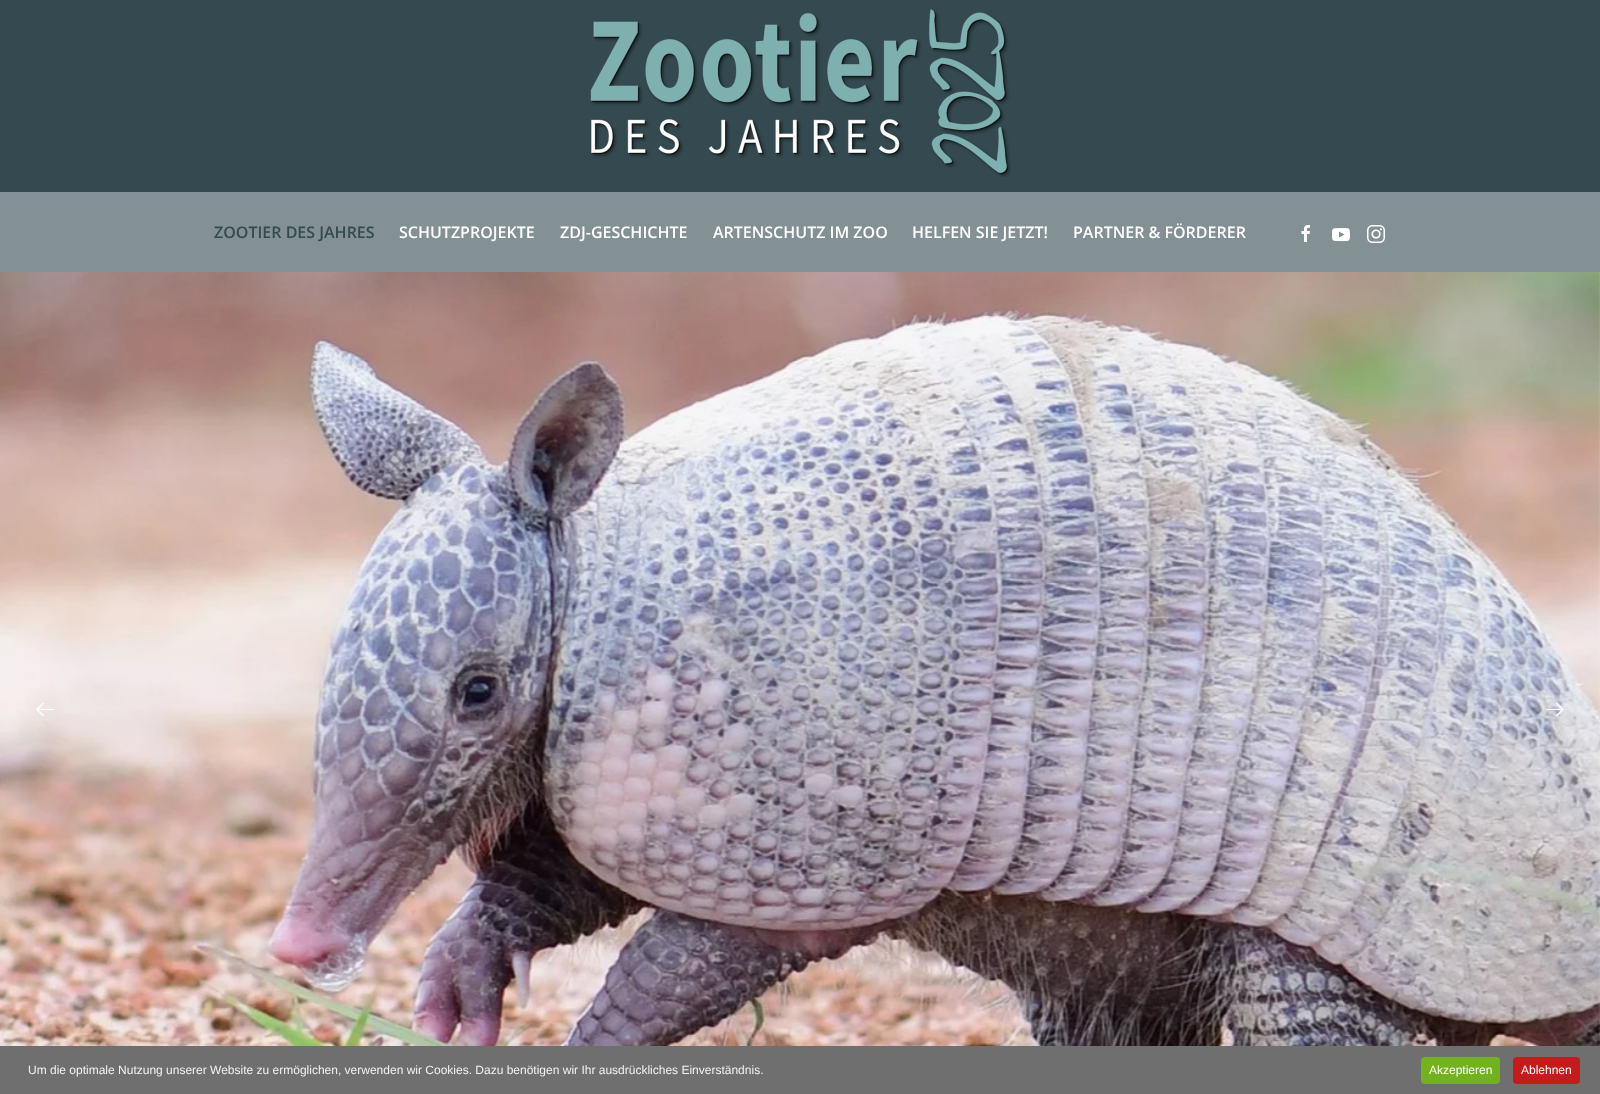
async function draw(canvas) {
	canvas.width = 1600;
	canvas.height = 1094;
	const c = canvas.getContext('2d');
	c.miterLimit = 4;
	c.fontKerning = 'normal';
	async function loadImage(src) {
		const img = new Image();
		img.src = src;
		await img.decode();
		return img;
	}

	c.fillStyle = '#fff';
	c.fillRect(0, 0, 1600, 1094);
	c.fillStyle = '#344a50';
	c.fillRect(0, 0, 1600, 192);
	c.drawImage(await loadImage('img1.png'), 590, 9, 421, 168);
	c.fillStyle = '#839194';
	c.fillRect(0, 192, 1600, 80);
	c.font = '600 16px Open Sans';
	c.fillStyle = '#344a50';
	c.fillText('ZOOTIER DES JAHRES', 214, 238);
	c.fillStyle = '#fff';
	for (const [text, x, y] of [
		['SCHUTZPROJEKTE', 399, 238],
		['ZDJ-GESCHICHTE', 560, 238],
		['ARTENSCHUTZ IM ZOO', 713, 238],
		['HELFEN SIE JETZT!', 912, 238],
		['PARTNER & FÖRDERER', 1073, 238],
	]) {
		c.fillText(text, x, y);
	}
	c.drawImage(await loadImage('img2.png'), 1301, 225, 9, 17);
	c.drawImage(await loadImage('img3.png'), 1332, 228, 18, 14);
	c.drawImage(await loadImage('img4.png'), 1367, 225, 18, 18);
	c.drawImage(await loadImage('img5.png'), 0, 272, 1600, 774);
	c.drawImage(await loadImage('img6.png'), 36, 703, 18, 14);
	c.drawImage(await loadImage('img7.png'), 1546, 702, 18, 15);
	c.fillStyle = '#706f6f';
	c.fillRect(0, 1046, 1600, 48);
	c.font = '12px Liberation Sans';
	c.fillStyle = '#f1f1f3';
	c.fillText('Um die optimale Nutzung unserer Website zu ermöglichen, verwenden wir Cookies. Dazu benötigen wir Ihr ausdrückliches Einverständnis.', 28, 1074);
	c.fillStyle = '#72b31d';
	c.beginPath();
	c.roundRect(1421, 1057, 79, 27, 4);
	c.fill();
	c.fillStyle = '#fff';
	c.fillText('Akzeptieren', 1429, 1074);
	c.fillStyle = '#c61b1b';
	c.beginPath();
	c.roundRect(1513, 1057, 67, 27, 4);
	c.fill();
	c.fillStyle = '#fff';
	c.fillText('Ablehnen', 1521, 1074);
}

draw(document.querySelector('canvas'));
